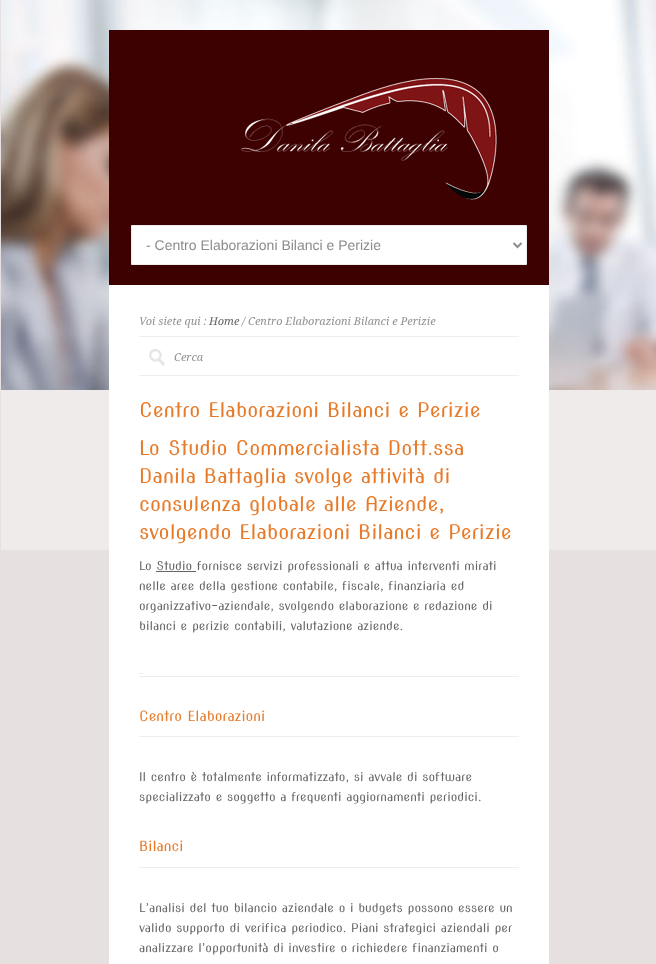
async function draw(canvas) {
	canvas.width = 656;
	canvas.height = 964;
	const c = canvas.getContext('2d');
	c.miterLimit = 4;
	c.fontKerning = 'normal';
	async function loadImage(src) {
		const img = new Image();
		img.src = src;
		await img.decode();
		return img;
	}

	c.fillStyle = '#e6e0e0';
	c.fillRect(0, 0, 656, 964);
	c.drawImage(await loadImage('img1.png'), 1, 0, 655, 390);
	c.fillStyle = '#efebeb';
	c.fillRect(1, 390, 655, 160);
	c.fillStyle = '#3e0101';
	c.fillRect(109, 30, 440, 255);
	c.drawImage(await loadImage('img2.png'), 241, 78, 256, 122);
	c.fillStyle = '#fff';
	c.beginPath();
	c.rect(131.5, 225.5, 395, 39);
	c.fill();
	c.strokeStyle = '#eee';
	c.stroke();
	c.beginPath();
	c.moveTo(513.5, 243);
	c.lineTo(517.5, 247);
	c.lineTo(521.5, 243);
	c.strokeStyle = '#8c8c8c';
	c.lineWidth = 2;
	c.stroke();
	c.font = '14px Liberation Sans';
	c.fillStyle = '#8c8c8c';
	c.fillText('- Centro Elaborazioni Bilanci e Perizie', 146, 250);
	c.fillStyle = '#fff';
	c.fillRect(109, 285, 440, 679);
	c.fillStyle = '#eee';
	c.fillRect(139, 336, 380, 1);
	c.font = 'italic 11px Droid Serif';
	c.fillStyle = '#929292';
	c.fillText('Voi siete qui :', 139, 325);
	c.fillStyle = '#666';
	c.fillText('Home', 209, 325);
	c.fillStyle = '#929292';
	c.fillText('/ Centro Elaborazioni Bilanci e Perizie', 242, 325);
	c.drawImage(await loadImage('img3.png'), 149, 349, 16, 17);
	c.fillStyle = '#eee';
	c.fillRect(139, 375, 380, 1);
	c.fillStyle = '#929292';
	c.fillText('Cerca', 174, 361);
	c.font = '20px Nova Slim';
	c.fillStyle = '#e77927';
	for (const [text, x, y] of [
		['Centro Elaborazioni Bilanci e Perizie', 139, 417],
		['Lo Studio Commercialista Dott.ssa', 139, 455],
		['Danila Battaglia svolge attività di', 139, 483],
		['consulenza globale alle Aziende,', 139, 511],
		['svolgendo Elaborazioni Bilanci e Perizie', 139, 539],
	]) {
		c.fillText(text, x, y);
	}
	c.font = '12px Nova Slim';
	c.fillStyle = '#666';
	c.fillText('Lo Studio fornisce servizi professionali e attua interventi mirati', 139, 570);
	c.fillRect(156, 571, 40, 1);
	for (const [text, x, y] of [
		['nelle aree della gestione contabile, fiscale, finanziaria ed', 139, 590],
		['organizzativo-aziendale, svolgendo elaborazione e redazione di', 139, 610],
		['bilanci e perizie contabili, valutazione aziende.', 139, 630],
	]) {
		c.fillText(text, x, y);
	}
	c.fillStyle = '#eee';
	c.fillRect(139, 676, 380, 1);
	c.fillRect(139, 673, 4, 1);
	c.font = '14px Nova Slim';
	c.fillStyle = '#e77927';
	c.fillText('Centro Elaborazioni', 139, 721);
	c.fillStyle = '#eee';
	c.fillRect(139, 736, 380, 1);
	c.font = '12px Nova Slim';
	c.fillStyle = '#666';
	c.fillText('Il centro è totalmente informatizzato, si avvale di software', 139, 781);
	c.fillText('specializzato e soggetto a frequenti aggiornamenti periodici.', 139, 801);
	c.font = '14px Nova Slim';
	c.fillStyle = '#e77927';
	c.fillText('Bilanci', 139, 851);
	c.fillStyle = '#eee';
	c.fillRect(139, 867, 380, 1);
	c.font = '12px Nova Slim';
	c.fillStyle = '#666';
	for (const [text, x, y] of [
		['L’analisi del tuo bilancio aziendale o i budgets possono essere un', 139, 912],
		['valido supporto di verifica periodico. Piani strategici aziendali per', 139, 932],
		['analizzare l’opportunità di investire o richiedere finanziamenti o', 139, 952],
	]) {
		c.fillText(text, x, y);
	}
}

draw(document.querySelector('canvas'));
